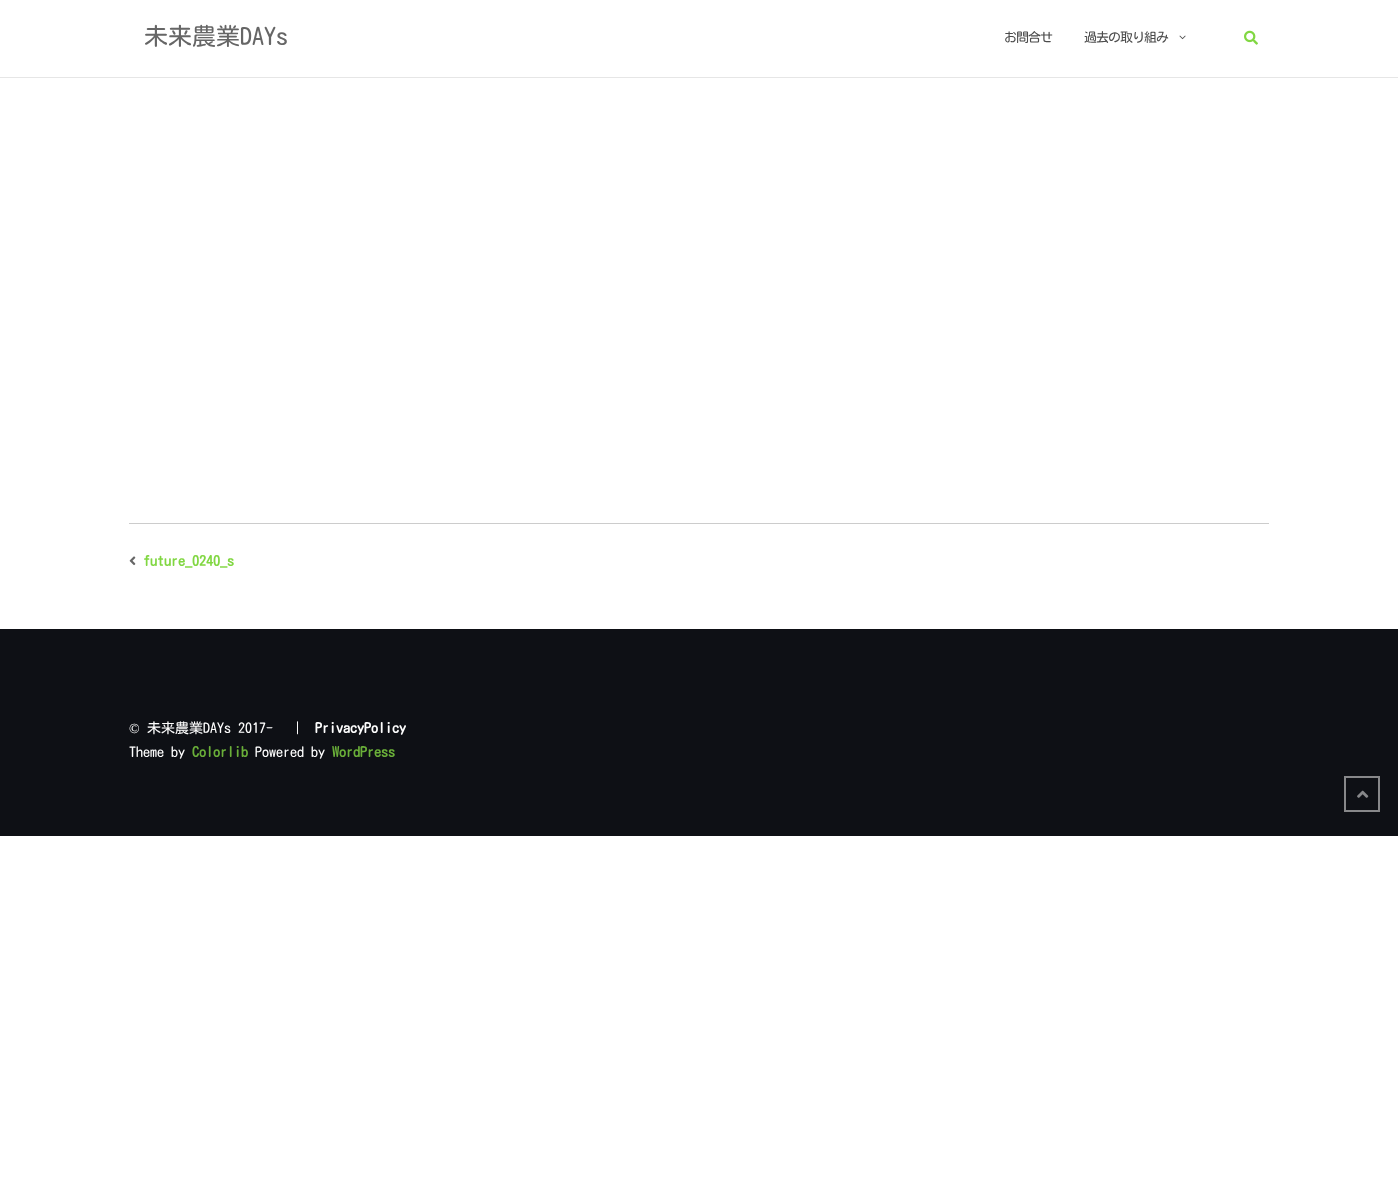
async function draw(canvas) {
	canvas.width = 1398;
	canvas.height = 1186;
	const c = canvas.getContext('2d');
	c.miterLimit = 4;
	c.fontKerning = 'normal';
	async function loadImage(src) {
		const img = new Image();
		img.src = src;
		await img.decode();
		return img;
	}

	c.fillStyle = '#fff';
	c.fillRect(0, 0, 1398, 1186);
	c.fillStyle = '#e6e6e6';
	c.fillRect(0, 77, 1398, 1);
	c.font = '24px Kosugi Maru';
	c.fillStyle = '#666';
	c.fillText('未来農業DAYs', 144, 45);
	c.letterSpacing = '-1px';
	c.font = '13px Kosugi Maru';
	c.fillStyle = '#4c4c4c';
	c.fillText('お問合せ', 1004, 42);
	c.fillText('過去の取り組み', 1084, 42);
	c.drawImage(await loadImage('img1.png'), 1179, 35, 7, 5);
	c.drawImage(await loadImage('img2.png'), 1244, 30, 14, 15);
	c.fillStyle = '#ccc';
	c.fillRect(129, 523, 1140, 1);
	c.drawImage(await loadImage('img3.png'), 129, 556, 7, 10);
	c.letterSpacing = '0px';
	c.font = 'bold 14px Kosugi Maru';
	c.fillStyle = '#81d742';
	c.fillText('future_0240_s', 143, 566);
	c.fillStyle = '#0e1015';
	c.fillRect(0, 629, 1398, 207);
	c.font = '14px Liberation Serif';
	c.fillStyle = '#fefefe';
	c.fillText('©︎', 129, 733);
	c.font = '14px Kosugi Maru';
	c.fillText('未来農業DAYs 2017- 　|', 147, 733);
	c.font = 'bold 14px Kosugi Maru';
	c.fillText('PrivacyPolicy', 315, 733);
	c.font = '14px Kosugi Maru';
	c.fillText('Theme by', 129, 757);
	c.font = 'bold 14px Kosugi Maru';
	c.fillStyle = '#6aaf39';
	c.fillText('Colorlib', 192, 757);
	c.font = '14px Kosugi Maru';
	c.fillStyle = '#fefefe';
	c.fillText('Powered by', 255, 757);
	c.font = 'bold 14px Kosugi Maru';
	c.fillStyle = '#6aaf39';
	c.fillText('WordPress', 332, 757);
	c.strokeStyle = '#87888a';
	c.lineWidth = 2;
	c.strokeRect(1345, 777, 34, 34);
	c.drawImage(await loadImage('img4.png'), 1357, 790, 12, 8);
}

draw(document.querySelector('canvas'));
